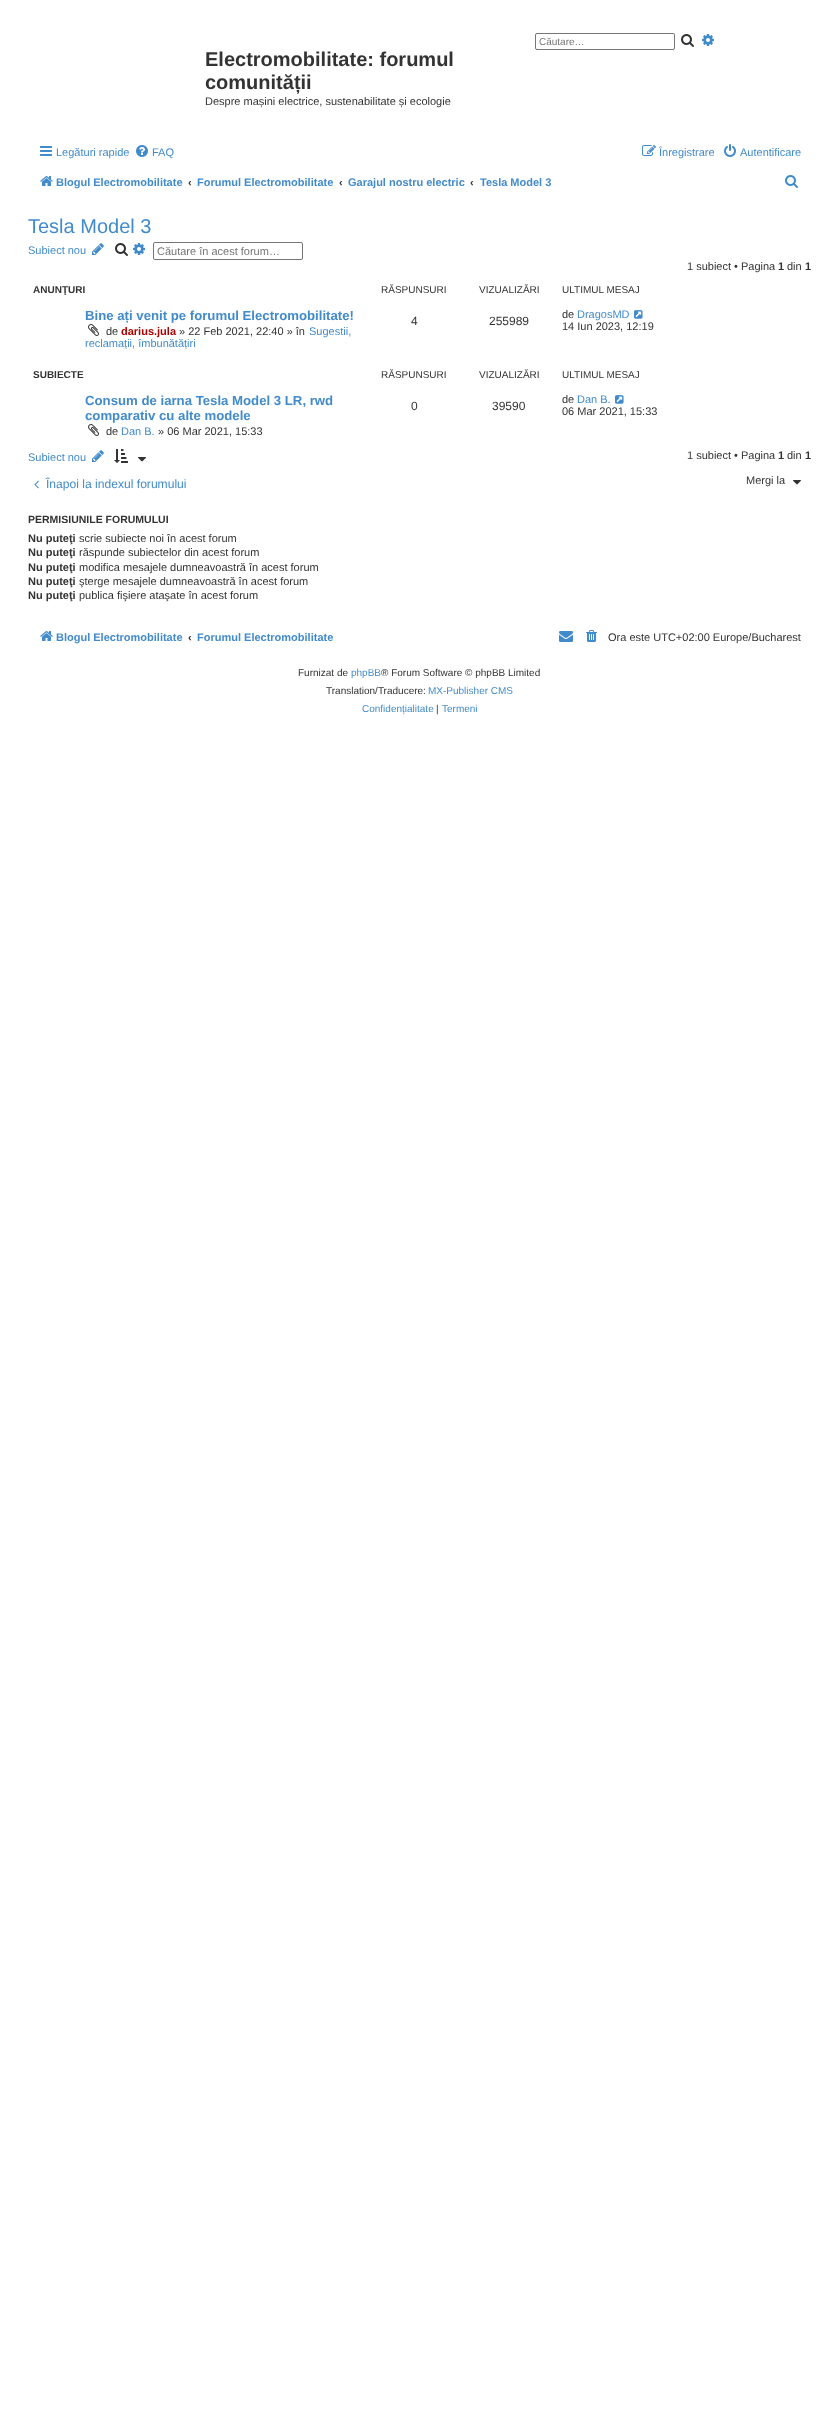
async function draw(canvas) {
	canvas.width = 839;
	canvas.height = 2433;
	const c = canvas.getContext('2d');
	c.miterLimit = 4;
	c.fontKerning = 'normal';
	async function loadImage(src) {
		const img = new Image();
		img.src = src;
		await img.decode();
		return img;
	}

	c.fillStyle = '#fff';
	c.fillRect(0, 0, 839, 2433);
	c.beginPath();
	c.roundRect(535.5, 33.5, 139, 16, 1.5);
	c.strokeStyle = '#767676';
	c.stroke();
	c.font = '10px Liberation Sans';
	c.fillStyle = '#757575';
	c.fillText('Căutare…', 539, 45);
	c.drawImage(await loadImage('img1.png'), 681, 34, 13, 13);
	c.drawImage(await loadImage('img2.png'), 702, 34, 12, 12);
	c.font = 'bold 20px Liberation Sans';
	c.fillStyle = '#333';
	c.fillText('Electromobilitate: forumul', 205, 66);
	c.fillText('comunității', 205, 89);
	c.font = '11px Liberation Sans';
	c.fillText('Despre mașini electrice, sustenabilitate și ecologie', 205, 105);
	c.drawImage(await loadImage('img3.png'), 40, 146, 12, 10);
	c.fillStyle = '#428bca';
	c.fillText('Legături rapide', 56, 156);
	c.drawImage(await loadImage('img4.png'), 136, 145, 12, 12);
	c.fillText('FAQ', 152, 156);
	c.drawImage(await loadImage('img5.png'), 642, 145, 14, 11);
	c.fillText('Înregistrare', 659, 156);
	c.drawImage(await loadImage('img6.png'), 724, 144, 12, 13);
	c.fillText('Autentificare', 740, 156);
	c.drawImage(await loadImage('img7.png'), 40, 176, 13, 10);
	c.font = 'bold 11px Liberation Sans';
	c.fillText('Blogul Electromobilitate', 56, 186);
	c.fillStyle = '#333';
	c.fillText('‹', 188, 186);
	c.fillStyle = '#428bca';
	c.fillText('Forumul Electromobilitate', 197, 186);
	c.fillStyle = '#333';
	c.fillText('‹', 339, 186);
	c.fillStyle = '#428bca';
	c.fillText('Garajul nostru electric', 348, 186);
	c.fillStyle = '#333';
	c.fillText('‹', 470, 186);
	c.fillStyle = '#428bca';
	c.fillText('Tesla Model 3', 480, 186);
	c.drawImage(await loadImage('img8.png'), 785, 175, 13, 13);
	c.font = '20px Liberation Sans';
	c.fillText('Tesla Model 3', 28, 233);
	c.font = '11px Liberation Sans';
	c.fillText('Subiect nou', 28, 254);
	c.drawImage(await loadImage('img9.png'), 92, 243, 12, 12);
	c.drawImage(await loadImage('img1.png'), 115, 243, 13, 13);
	c.drawImage(await loadImage('img2.png'), 133, 243, 12, 12);
	c.beginPath();
	c.roundRect(153.5, 242.5, 149, 17, 1.5);
	c.stroke();
	c.fillStyle = '#757575';
	c.fillText('Căutare în acest forum…', 157, 255);
	c.fillStyle = '#333';
	c.fillText('1 subiect • Pagina', 687, 270);
	c.font = 'bold 11px Liberation Sans';
	c.fillText('1', 778, 270);
	c.font = '11px Liberation Sans';
	c.fillText('din', 787, 270);
	c.font = 'bold 11px Liberation Sans';
	c.fillText('1', 805, 270);
	c.font = 'bold 10px Liberation Sans';
	c.fillText('ANUNŢURI', 33, 293);
	c.font = '10px Liberation Sans';
	for (const [text, x, y] of [
		['RĂSPUNSURI', 381, 293],
		['VIZUALIZĂRI', 479, 293],
		['ULTIMUL MESAJ', 562, 293],
	]) {
		c.fillText(text, x, y);
	}
	c.font = 'bold 13.2px Liberation Sans';
	c.fillStyle = '#428bca';
	c.fillText('Bine ați venit pe forumul Electromobilitate!', 85, 320);
	c.drawImage(await loadImage('img10.png'), 88, 324, 11, 12);
	c.font = '11px Liberation Sans';
	c.fillStyle = '#333';
	c.fillText('de', 106, 335);
	c.font = 'bold 11px Liberation Sans';
	c.fillStyle = '#a00';
	c.fillText('darius.jula', 121, 335);
	c.font = '11px Liberation Sans';
	c.fillStyle = '#333';
	c.fillText('» 22 Feb 2021, 22:40 » în', 179, 335);
	c.fillStyle = '#428bca';
	c.fillText('Sugestii,', 309, 335);
	c.save();
	c.beginPath();
	c.rect(33, 304, 773, 45);
	c.clip();
	c.fillText('reclamații, îmbunătățiri', 85, 347);
	c.restore();
	c.font = '12px Liberation Sans';
	c.fillStyle = '#333';
	c.fillText('4', 411, 325);
	c.fillText('255989', 489, 325);
	c.font = '11px Liberation Sans';
	c.fillText('de', 562, 318);
	c.fillStyle = '#428bca';
	c.fillText('DragosMD', 577, 318);
	c.drawImage(await loadImage('img11.png'), 634, 310, 9, 9);
	c.fillStyle = '#333';
	c.fillText('14 Iun 2023, 12:19', 562, 330);
	c.font = 'bold 10px Liberation Sans';
	c.fillText('SUBIECTE', 33, 378);
	c.font = '10px Liberation Sans';
	for (const [text, x, y] of [
		['RĂSPUNSURI', 381, 378],
		['VIZUALIZĂRI', 479, 378],
		['ULTIMUL MESAJ', 562, 378],
	]) {
		c.fillText(text, x, y);
	}
	c.font = 'bold 13.2px Liberation Sans';
	c.fillStyle = '#428bca';
	c.fillText('Consum de iarna Tesla Model 3 LR, rwd', 85, 405);
	c.fillText('comparativ cu alte modele', 85, 420);
	c.drawImage(await loadImage('img10.png'), 88, 424, 11, 12);
	c.font = '11px Liberation Sans';
	c.fillStyle = '#333';
	c.fillText('de', 106, 435);
	c.fillStyle = '#428bca';
	c.fillText('Dan B.', 121, 435);
	c.fillStyle = '#333';
	c.fillText('» 06 Mar 2021, 15:33', 158, 435);
	c.font = '12px Liberation Sans';
	c.fillText('0', 411, 410);
	c.fillText('39590', 492, 410);
	c.font = '11px Liberation Sans';
	c.fillText('de', 562, 403);
	c.fillStyle = '#428bca';
	c.fillText('Dan B.', 577, 403);
	c.drawImage(await loadImage('img11.png'), 615, 395, 9, 9);
	c.fillStyle = '#333';
	c.fillText('06 Mar 2021, 15:33', 562, 415);
	c.fillStyle = '#428bca';
	c.fillText('Subiect nou', 28, 461);
	c.drawImage(await loadImage('img9.png'), 92, 450, 12, 12);
	c.drawImage(await loadImage('img12.png'), 114, 449, 14, 14);
	c.drawImage(await loadImage('img13.png'), 138, 457, 8, 5);
	c.fillStyle = '#333';
	c.fillText('1 subiect • Pagina', 687, 459);
	c.font = 'bold 11px Liberation Sans';
	c.fillText('1', 778, 459);
	c.font = '11px Liberation Sans';
	c.fillText('din', 787, 459);
	c.font = 'bold 11px Liberation Sans';
	c.fillText('1', 805, 459);
	c.drawImage(await loadImage('img14.png'), 34, 480, 5, 9);
	c.font = '12.1px Liberation Sans';
	c.fillStyle = '#428bca';
	c.fillText('Înapoi la indexul forumului', 46, 488);
	c.font = '11px Liberation Sans';
	c.fillStyle = '#333';
	c.fillText('Mergi la', 746, 484);
	c.drawImage(await loadImage('img13.png'), 793, 480, 8, 5);
	c.font = 'bold 10.5px Liberation Sans';
	c.fillText('PERMISIUNILE FORUMULUI', 28, 523);
	c.font = 'bold 11px Liberation Sans';
	c.fillText('Nu puteţi', 28, 542);
	c.font = '11px Liberation Sans';
	c.fillText('scrie subiecte noi în acest forum', 79, 542);
	c.font = 'bold 11px Liberation Sans';
	c.fillText('Nu puteţi', 28, 556);
	c.font = '11px Liberation Sans';
	c.fillText('răspunde subiectelor din acest forum', 79, 556);
	c.font = 'bold 11px Liberation Sans';
	c.fillText('Nu puteţi', 28, 571);
	c.font = '11px Liberation Sans';
	c.fillText('modifica mesajele dumneavoastră în acest forum', 79, 571);
	c.font = 'bold 11px Liberation Sans';
	c.fillText('Nu puteţi', 28, 585);
	c.font = '11px Liberation Sans';
	c.fillText('şterge mesajele dumneavoastră în acest forum', 79, 585);
	c.font = 'bold 11px Liberation Sans';
	c.fillText('Nu puteţi', 28, 599);
	c.font = '11px Liberation Sans';
	c.fillText('publica fişiere ataşate în acest forum', 79, 599);
	c.drawImage(await loadImage('img7.png'), 40, 631, 13, 10);
	c.font = 'bold 11px Liberation Sans';
	c.fillStyle = '#428bca';
	c.fillText('Blogul Electromobilitate', 56, 641);
	c.fillStyle = '#333';
	c.fillText('‹', 188, 641);
	c.fillStyle = '#428bca';
	c.fillText('Forumul Electromobilitate', 197, 641);
	c.drawImage(await loadImage('img15.png'), 559, 631, 14, 11);
	c.drawImage(await loadImage('img16.png'), 586, 630, 11, 12);
	c.font = '11px Liberation Sans';
	c.fillStyle = '#333';
	c.fillText('Ora este UTC+02:00 Europe/Bucharest', 608, 641);
	c.font = '10px Liberation Sans';
	c.fillText('Furnizat de', 298, 676);
	c.fillStyle = '#428bca';
	c.fillText('phpBB', 351, 676);
	c.fillStyle = '#333';
	c.fillText('® Forum Software © phpBB Limited', 381, 676);
	c.fillText('Translation/Traducere:', 326, 694);
	c.fillStyle = '#428bca';
	c.fillText('MX-Publisher CMS', 428, 694);
	c.fillText('Confidențialitate', 362, 712);
	c.fillStyle = '#333';
	c.fillText('|', 436, 712);
	c.fillStyle = '#428bca';
	c.fillText('Termeni', 442, 712);
}

draw(document.querySelector('canvas'));
